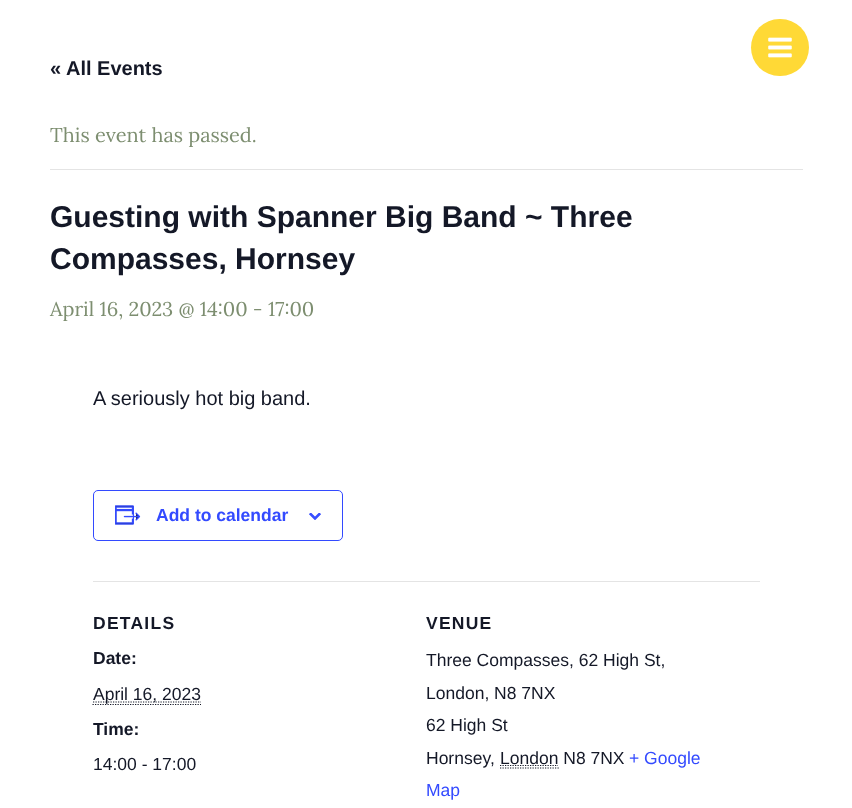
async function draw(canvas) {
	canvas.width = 852;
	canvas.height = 808;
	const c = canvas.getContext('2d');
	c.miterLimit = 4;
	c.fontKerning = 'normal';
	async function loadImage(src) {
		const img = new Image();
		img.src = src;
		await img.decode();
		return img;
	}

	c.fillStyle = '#fff';
	c.fillRect(0, 0, 852, 808);
	c.fillStyle = '#ffd936';
	c.beginPath();
	c.roundRect(751, 19, 58, 57, 28.5);
	c.fill();
	c.drawImage(await loadImage('img1.png'), 768, 37, 24, 21);
	c.font = 'bold 20px Liberation Sans';
	c.fillStyle = '#141827';
	c.fillText('« All Events', 50, 75);
	c.fillStyle = '#e4e4e4';
	c.fillRect(50, 169, 753, 1);
	c.font = '20px Lora';
	c.fillStyle = '#7d8e70';
	c.fillText('This event has passed.', 50, 142);
	c.font = 'bold 30px Liberation Sans';
	c.fillStyle = '#141827';
	c.fillText('Guesting with Spanner Big Band ~ Three', 50, 227);
	c.fillText('Compasses, Hornsey', 50, 269);
	c.font = '20px Lora';
	c.fillStyle = '#7d8e70';
	c.fillText('April 16, 2023 @ 14:00 - 17:00', 50, 316);
	c.font = '20px Liberation Sans';
	c.fillStyle = '#141827';
	c.fillText('A seriously hot big band.', 93, 405);
	c.beginPath();
	c.roundRect(93.5, 490.5, 249, 50, 4.5);
	c.strokeStyle = '#334aff';
	c.stroke();
	c.drawImage(await loadImage('img2.png'), 115, 505, 26, 20);
	c.font = 'bold 17.5px Liberation Sans';
	c.fillStyle = '#334aff';
	c.fillText('Add to calendar', 156, 521);
	c.drawImage(await loadImage('img3.png'), 309, 513, 12, 7);
	c.fillStyle = '#e4e4e4';
	c.fillRect(93, 581, 667, 1);
	c.letterSpacing = '1.25px';
	c.fillStyle = '#141827';
	c.fillText('DETAILS', 93, 629);
	c.letterSpacing = '0px';
	c.fillText('Date:', 93, 664);
	c.beginPath();
	c.moveTo(92.5, 704.5);
	c.lineTo(201, 704.5);
	c.strokeStyle = '#141827';
	c.lineWidth = 1.2;
	c.setLineDash([1.25, 1.25]);
	c.stroke();
	c.beginPath();
	c.moveTo(93, 702);
	c.lineTo(201, 702);
	c.stroke();
	c.font = '17.5px Liberation Sans';
	c.fillText('April 16, 2023', 93, 700);
	c.font = 'bold 17.5px Liberation Sans';
	c.fillText('Time:', 93, 735);
	c.font = '17.5px Liberation Sans';
	c.fillText('14:00 - 17:00', 93, 770);
	c.letterSpacing = '1.25px';
	c.font = 'bold 17.5px Liberation Sans';
	c.fillText('VENUE', 426, 629);
	c.letterSpacing = '0px';
	c.font = '17.5px Liberation Sans';
	for (const [text, x, y] of [
		['Three Compasses, 62 High St,', 426, 666],
		['London, N8 7NX', 426, 699],
		['62 High St', 426, 731],
		['Hornsey', 426, 764],
		[',', 490, 764],
	]) {
		c.fillText(text, x, y);
	}
	c.beginPath();
	c.moveTo(500, 768);
	c.lineTo(559, 768);
	c.moveTo(500, 765.5);
	c.lineTo(558, 765.5);
	c.stroke();
	c.fillText('London N8 7NX', 500, 764);
	c.fillStyle = '#334aff';
	c.fillText('+ Google', 629, 764);
	c.fillText('Map', 426, 796);
}

draw(document.querySelector('canvas'));
